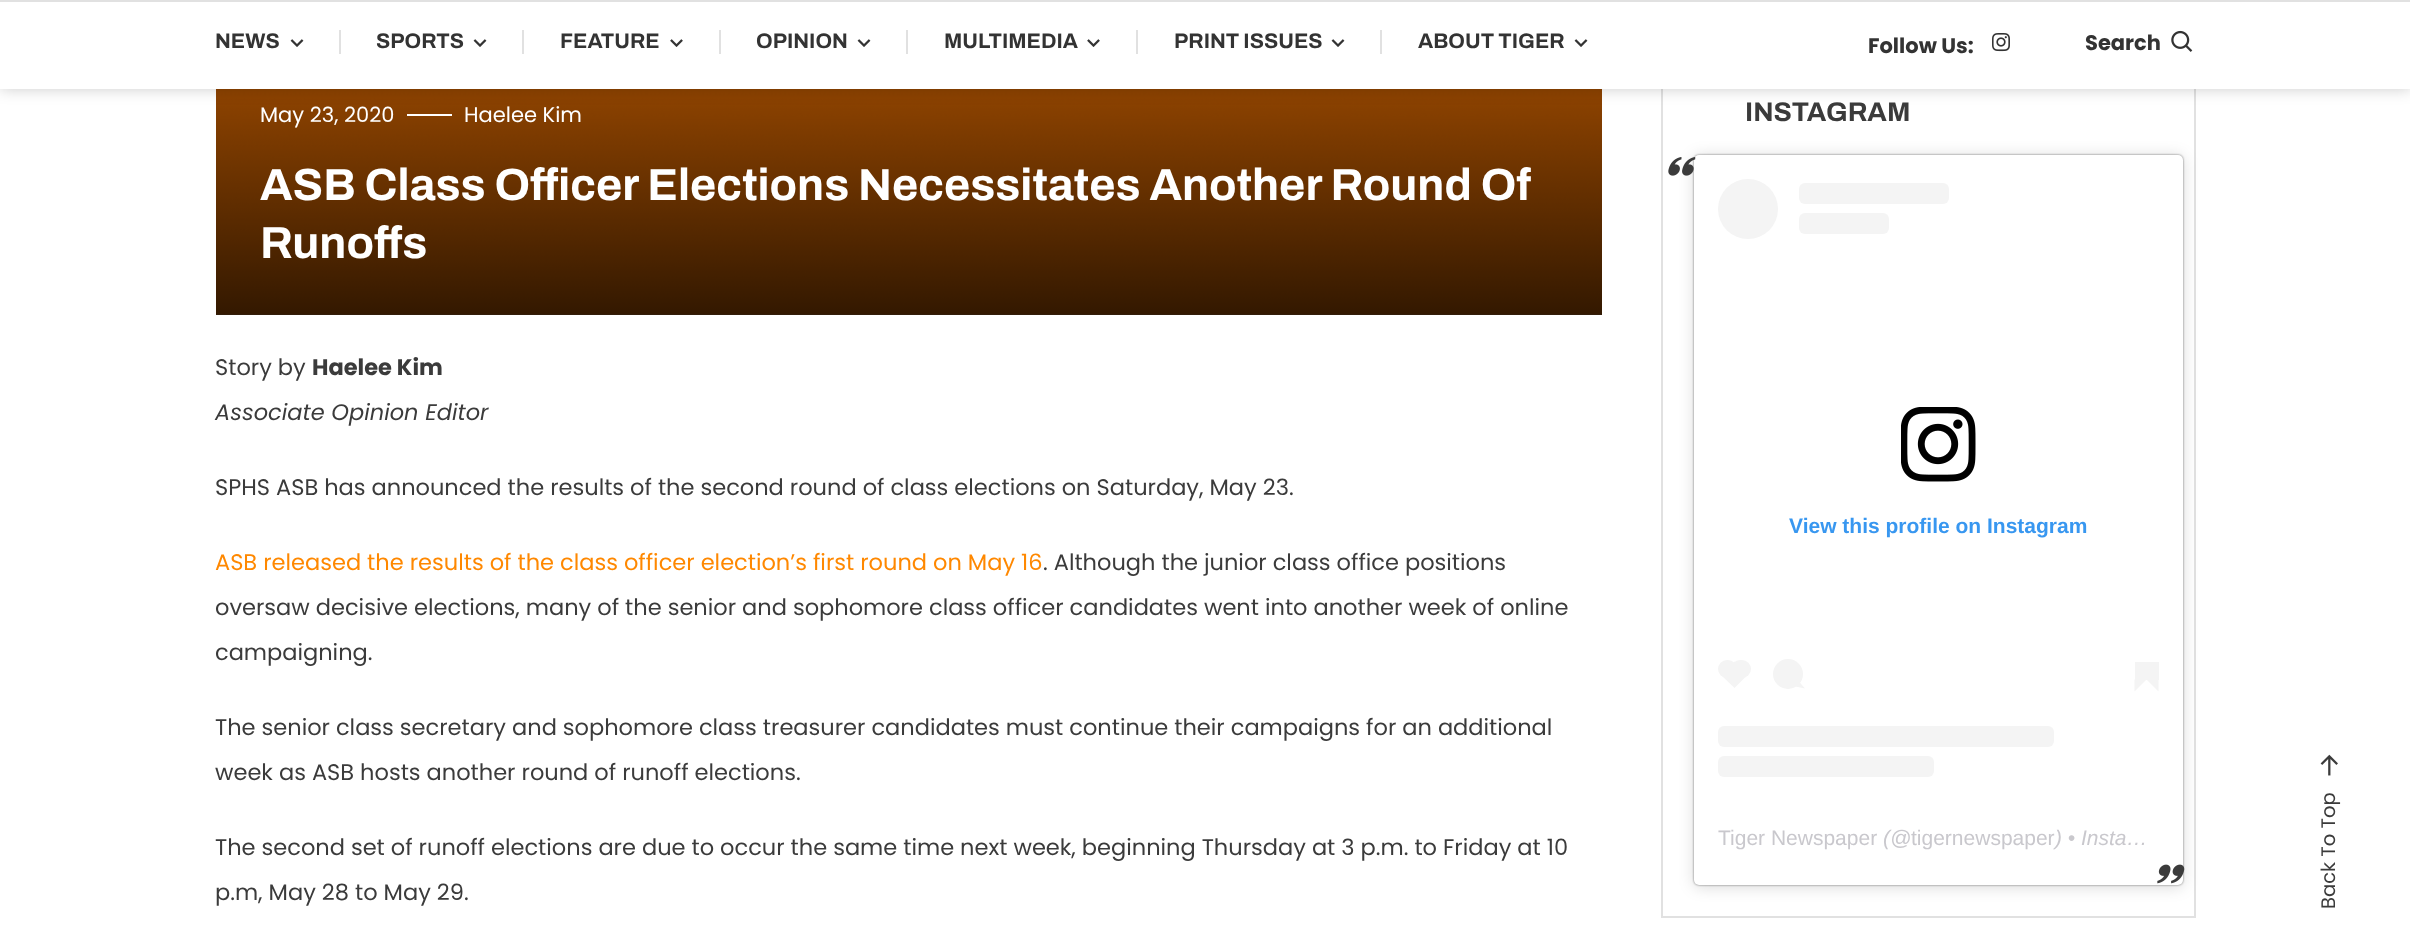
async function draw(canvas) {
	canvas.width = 2410;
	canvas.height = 951;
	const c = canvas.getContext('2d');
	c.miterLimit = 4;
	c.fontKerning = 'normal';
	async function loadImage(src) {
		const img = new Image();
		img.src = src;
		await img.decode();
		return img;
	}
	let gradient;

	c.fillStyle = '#fff';
	c.fillRect(0, 0, 2410, 951);
	c.drawImage(await loadImage('img5.png'), 216, 89, 1386, 226);
	gradient = c.createLinearGradient(909, -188, 909, 315);
	gradient.addColorStop(0, '#00000000');
	gradient.addColorStop(1, '#000000cc');
	c.fillStyle = gradient;
	c.fillRect(216, 89, 1386, 226);
	c.strokeStyle = '#e1e1e1';
	c.lineWidth = 2;
	c.strokeRect(1662, 21, 533, 896);
	c.fillStyle = '#00000033';
	c.filter = 'blur(7.5px)';
	c.beginPath();
	c.rect(0, 0, 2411, 89);
	c.fill();
	c.filter = 'none';
	c.fillStyle = '#fff';
	c.fillRect(0, 2, 2410, 87);
	c.fillStyle = '#e1e1e1';
	c.fillRect(0, 0, 2410, 2);
	c.font = 'bold 21px Archivo';
	c.fillStyle = '#333';
	c.fillText('NEWS', 215, 48);
	c.drawImage(await loadImage('img1.png'), 290, 39, 14, 8);
	c.fillStyle = '#e1e1e1';
	c.fillRect(339, 30, 2, 24);
	c.fillStyle = '#333';
	c.fillText('SPORTS', 376, 48);
	c.drawImage(await loadImage('img1.png'), 473, 39, 14, 8);
	c.fillStyle = '#e1e1e1';
	c.fillRect(522, 30, 2, 24);
	c.fillStyle = '#333';
	c.fillText('FEATURE', 560, 48);
	c.drawImage(await loadImage('img2.png'), 670, 39, 13, 8);
	c.fillStyle = '#e1e1e1';
	c.fillRect(719, 30, 2, 24);
	c.fillStyle = '#333';
	c.fillText('OPINION', 756, 48);
	c.drawImage(await loadImage('img1.png'), 857, 39, 14, 8);
	c.fillStyle = '#e1e1e1';
	c.fillRect(906, 30, 2, 24);
	c.fillStyle = '#333';
	c.fillText('MULTIMEDIA', 944, 48);
	c.drawImage(await loadImage('img2.png'), 1087, 39, 13, 8);
	c.fillStyle = '#e1e1e1';
	c.fillRect(1136, 30, 2, 24);
	c.fillStyle = '#333';
	c.fillText('PRINT ISSUES', 1174, 48);
	c.drawImage(await loadImage('img1.png'), 1331, 39, 14, 8);
	c.fillStyle = '#e1e1e1';
	c.fillRect(1380, 30, 2, 24);
	c.fillStyle = '#333';
	c.fillText('ABOUT TIGER', 1418, 48);
	c.drawImage(await loadImage('img1.png'), 1574, 39, 14, 8);
	c.font = 'bold 21px Poppins';
	c.fillText('Follow Us:', 1868, 53);
	c.drawImage(await loadImage('img3.png'), 1992, 33, 18, 19);
	c.fillText('Search', 2085, 50);
	c.drawImage(await loadImage('img4.png'), 2171, 30, 22, 22);
	c.font = '21px Poppins';
	c.fillStyle = '#fff';
	c.fillText('May 23, 2020', 260, 122);
	c.fillRect(407, 114, 45, 2);
	c.fillText('Haelee Kim', 464, 122);
	c.font = 'bold 45px Archivo';
	c.fillText('ASB Class Officer Elections Necessitates Another Round Of', 260, 200);
	c.fillText('Runoffs', 260, 258);
	c.font = '22.5px Poppins';
	c.fillStyle = '#3b3b3b';
	c.fillText('Story by', 215, 375);
	c.font = 'bold 22.5px Poppins';
	c.fillText('Haelee Kim', 312, 375);
	c.font = 'italic 22.5px Poppins';
	c.fillText('Associate Opinion Editor', 215, 420);
	c.font = '22.5px Poppins';
	c.fillText('SPHS ASB has announced the results of the second round of class elections on Saturday, May 23.', 215, 495);
	c.fillStyle = '#f80';
	c.fillText('ASB released the results of the class officer election’s first round on May 16', 215, 570);
	c.fillStyle = '#3b3b3b';
	for (const [text, x, y] of [
		['. Although the junior class office positions', 1043, 570],
		['oversaw decisive elections, many of the senior and sophomore class officer candidates went into another week of online', 215, 615],
		['campaigning.', 215, 660],
		['The senior class secretary and sophomore class treasurer candidates must continue their campaigns for an additional', 215, 735],
		['week as ASB hosts another round of runoff elections.', 215, 780],
		['The second set of runoff elections are due to occur the same time next week, beginning Thursday at 3 p.m. to Friday at 10', 215, 855],
		['p.m, May 28 to May 29.', 215, 900],
	]) {
		c.fillText(text, x, y);
	}
	c.font = 'bold 27px Archivo';
	c.fillText('INSTAGRAM', 1745, 121);
	c.fillStyle = '#00000026';
	c.filter = 'blur(7.5px)';
	c.beginPath();
	c.roundRect(1694, 156, 489, 731, 5);
	c.fill();
	c.filter = 'none';
	c.fillStyle = '#00000080';
	c.filter = 'blur(1px)';
	c.beginPath();
	c.roundRect(1694, 155, 489, 730, 5);
	c.fill();
	c.filter = 'none';
	c.fillStyle = '#fff';
	c.beginPath();
	c.roundRect(1694, 155, 489, 730, 5);
	c.fill();
	c.drawImage(await loadImage('img6.png'), 1668, 157, 28, 19);
	c.fillStyle = '#f4f4f4';
	c.beginPath();
	c.arc(1748, 209, 30, 0, 2 * Math.PI);
	c.fill();
	c.beginPath();
	c.roundRect(1799, 183, 150, 21, 6);
	c.fill();
	c.beginPath();
	c.roundRect(1799, 213, 90, 21, 6);
	c.fill();
	c.drawImage(await loadImage('img7.png'), 1901, 407, 75, 75);
	c.font = 'bold 21px Liberation Sans';
	c.fillStyle = '#3897f0';
	c.fillText('View this profile on Instagram', 1789, 533);
	c.fillStyle = '#f4f4f4';
	c.beginPath();
	c.roundRect(1718, 660, 19, 18, 9);
	c.fill();
	c.beginPath();
	c.moveTo(1721, 675);
	c.lineTo(1734.5, 661.5);
	c.lineTo(1747.5, 675);
	c.lineTo(1734.5, 688);
	c.closePath();
	c.fill();
	c.beginPath();
	c.roundRect(1731, 660, 20, 18, 9);
	c.fill();
	c.beginPath();
	c.arc(1788, 674, 15, 0, 2 * Math.PI);
	c.fill();
	c.beginPath();
	c.moveTo(1795.5, 686.5);
	c.lineTo(1798.5, 681);
	c.lineTo(1805, 688.5);
	c.closePath();
	c.fill();
	c.beginPath();
	c.moveTo(2134.5, 679.5);
	c.lineTo(2146.5, 679.5);
	c.lineTo(2134.5, 691.5);
	c.closePath();
	c.fill();
	c.fillRect(2135, 662, 24, 18);
	c.beginPath();
	c.moveTo(2146.5, 679.5);
	c.lineTo(2158.5, 679.5);
	c.lineTo(2158.5, 691.5);
	c.closePath();
	c.fill();
	c.beginPath();
	c.roundRect(1718, 726, 336, 21, 6);
	c.fill();
	c.beginPath();
	c.roundRect(1718, 756, 216, 21, 6);
	c.fill();
	c.font = '21px Liberation Sans';
	c.fillStyle = '#c9c8cd';
	c.fillText('Tiger Newspaper', 1718, 845);
	c.font = 'italic 21px Liberation Sans';
	c.fillText('(@', 1883, 845);
	c.font = '21px Liberation Sans';
	c.fillText('tigernewspaper', 1911, 845);
	c.font = 'italic 21px Liberation Sans';
	c.fillText(') • Insta…', 2055, 845);
	c.drawImage(await loadImage('img8.png'), 2157, 864, 28, 20);
	c.drawImage(await loadImage('img9.png'), 2320, 754, 18, 22);
	c.font = '19.5px Poppins';
	c.fillStyle = '#3b3b3b';
	c.save();
	c.translate(2335, 909);
	c.rotate(-90 * Math.PI / 180);
	c.fillText('Back To Top', 0, 0);
	c.restore();
}

draw(document.querySelector('canvas'));
